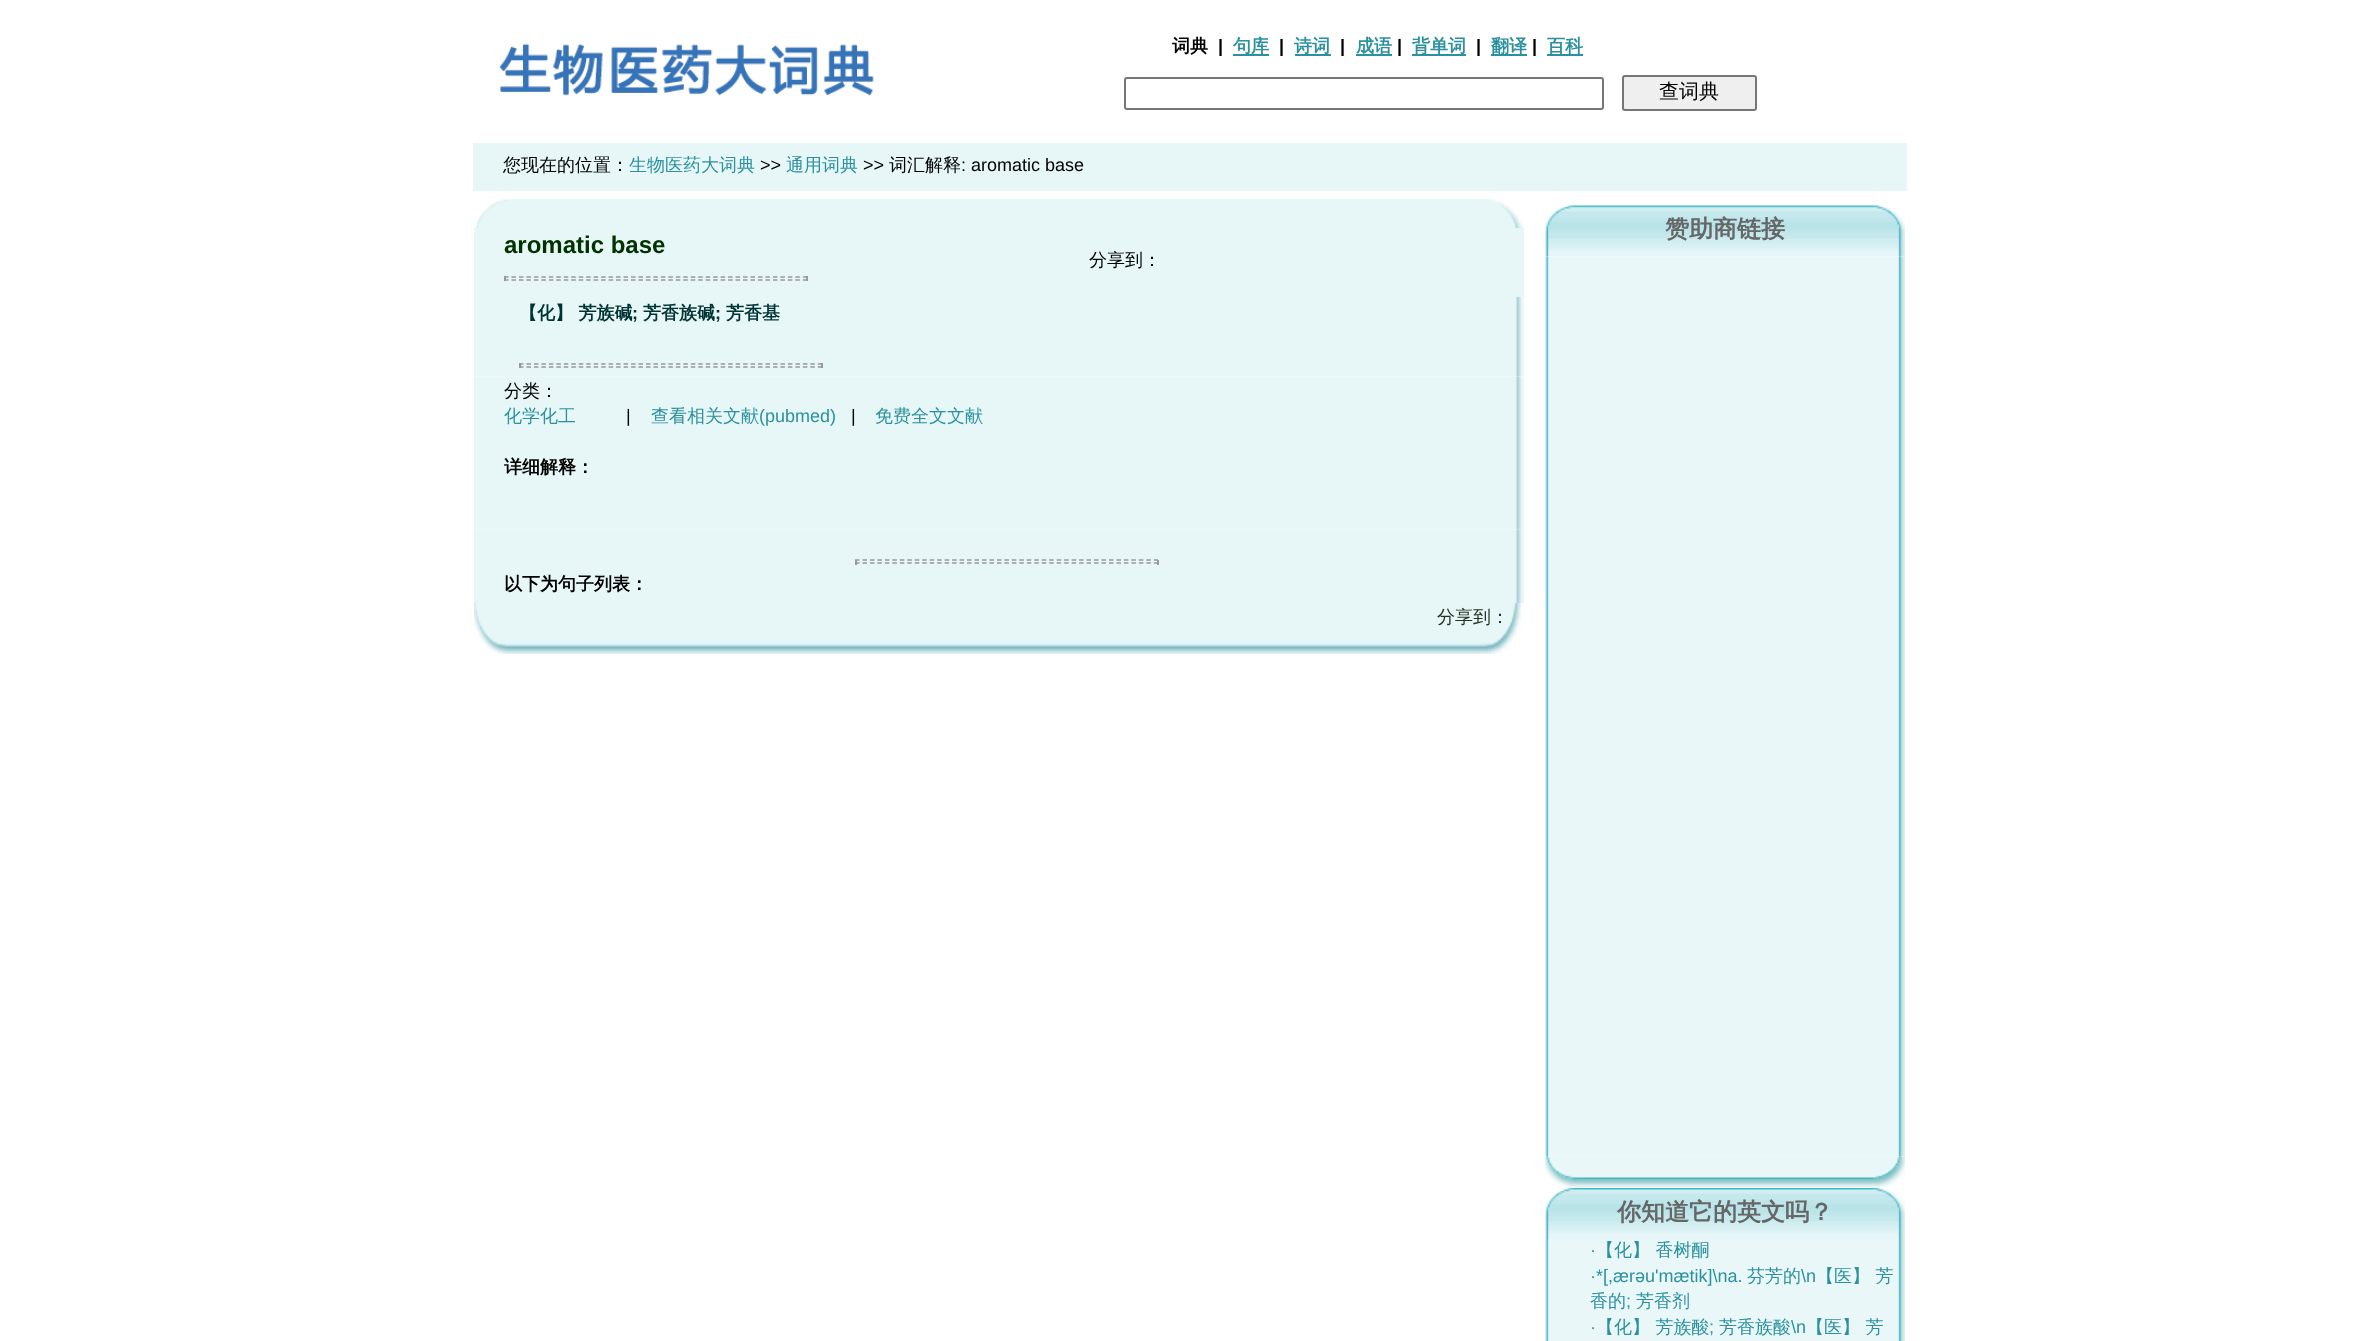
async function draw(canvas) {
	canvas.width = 2378;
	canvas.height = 1341;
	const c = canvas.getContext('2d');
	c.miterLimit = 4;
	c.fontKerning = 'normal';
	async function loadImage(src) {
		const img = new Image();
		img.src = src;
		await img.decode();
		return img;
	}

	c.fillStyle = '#fff';
	c.fillRect(0, 0, 2378, 1341);
	c.drawImage(await loadImage('img1.png'), 499, 43, 375, 53);
	c.font = 'bold 18px WenQuanYi Zen Hei';
	c.fillStyle = '#000';
	c.fillText('词典', 1172, 52);
	c.font = 'bold 18px Liberation Sans';
	c.fillText('|', 1218, 52);
	c.fillStyle = '#2b919f';
	c.fillRect(1233, 54, 36, 2);
	c.font = 'bold 18px WenQuanYi Zen Hei';
	c.fillText('句库', 1233, 52);
	c.font = 'bold 18px Liberation Sans';
	c.fillStyle = '#000';
	c.fillText('|', 1279, 52);
	c.fillStyle = '#2b919f';
	c.fillRect(1295, 54, 36, 2);
	c.font = 'bold 18px WenQuanYi Zen Hei';
	c.fillText('诗词', 1294, 52);
	c.font = 'bold 18px Liberation Sans';
	c.fillStyle = '#000';
	c.fillText('|', 1340, 52);
	c.fillStyle = '#2b919f';
	c.fillRect(1356, 54, 36, 2);
	c.font = 'bold 18px WenQuanYi Zen Hei';
	c.fillText('成语', 1356, 52);
	c.font = 'bold 18px Liberation Sans';
	c.fillStyle = '#000';
	c.fillText('|', 1397, 52);
	c.fillStyle = '#2b919f';
	c.fillRect(1412, 54, 54, 2);
	c.font = 'bold 18px WenQuanYi Zen Hei';
	c.fillText('背单词', 1412, 52);
	c.font = 'bold 18px Liberation Sans';
	c.fillStyle = '#000';
	c.fillText('|', 1476, 52);
	c.fillStyle = '#2b919f';
	c.fillRect(1491, 54, 36, 2);
	c.font = 'bold 18px WenQuanYi Zen Hei';
	c.fillText('翻译', 1491, 52);
	c.font = 'bold 18px Liberation Sans';
	c.fillStyle = '#000';
	c.fillText('|', 1532, 52);
	c.fillStyle = '#2b919f';
	c.fillRect(1547, 54, 36, 2);
	c.font = 'bold 18px WenQuanYi Zen Hei';
	c.fillText('百科', 1547, 52);
	c.beginPath();
	c.roundRect(1125, 78, 478, 31, 2);
	c.strokeStyle = '#767676';
	c.lineWidth = 2;
	c.stroke();
	c.fillStyle = '#efefef';
	c.beginPath();
	c.roundRect(1623, 76, 133, 34, 2);
	c.fill();
	c.stroke();
	c.font = '500 20px WenQuanYi Zen Hei';
	c.fillStyle = '#000';
	c.fillText('查词典', 1659, 98);
	c.fillStyle = '#e7f7f7';
	c.fillRect(473, 143, 1434, 48);
	c.font = '500 18px WenQuanYi Zen Hei';
	c.fillStyle = '#000';
	c.fillText('您现在的位置：', 503, 171);
	c.fillStyle = '#2b919f';
	c.fillText('生物医药大词典', 629, 171);
	c.font = '18px Liberation Sans';
	c.fillStyle = '#000';
	c.fillText('>>', 760, 171);
	c.font = '500 18px WenQuanYi Zen Hei';
	c.fillStyle = '#2b919f';
	c.fillText('通用词典', 786, 171);
	c.font = '18px Liberation Sans';
	c.fillStyle = '#000';
	c.fillText('>>', 863, 171);
	c.font = '500 18px WenQuanYi Zen Hei';
	c.fillText('词汇解释', 889, 171);
	c.font = '18px Liberation Sans';
	c.fillText(': aromatic base', 961, 171);
	c.drawImage(await loadImage('img2.png'), 475, 198, 1049, 30);
	c.fillStyle = '#e7f7f7';
	c.fillRect(474, 228, 1050, 69);
	c.font = 'bold 24px Liberation Sans';
	c.fillStyle = '#030';
	c.fillText('aromatic base', 504, 253);
	c.beginPath();
	c.moveTo(504, 277);
	c.lineTo(807, 277);
	c.strokeStyle = '#999';
	c.lineWidth = 1.5;
	c.setLineDash([4.5, 2.97]);
	c.stroke();
	c.fillStyle = '#999';
	c.fillRect(806, 276, 2, 5);
	c.beginPath();
	c.moveTo(504, 280);
	c.lineTo(807, 280);
	c.stroke();
	c.fillRect(504, 276, 2, 5);
	c.font = '500 18px WenQuanYi Zen Hei';
	c.fillStyle = '#000';
	c.fillText('分享到：', 1089, 266);
	c.drawImage(await loadImage('img3.png'), 474, 297, 1050, 80);
	c.font = 'bold 18px WenQuanYi Zen Hei';
	c.fillStyle = '#033';
	c.fillText('【化】 芳族碱', 519, 319);
	c.font = 'bold 18px Liberation Sans';
	c.fillText(';', 632, 319);
	c.font = 'bold 18px WenQuanYi Zen Hei';
	c.fillText('芳香族碱', 643, 319);
	c.font = 'bold 18px Liberation Sans';
	c.fillText(';', 715, 319);
	c.font = 'bold 18px WenQuanYi Zen Hei';
	c.fillText('芳香基', 726, 319);
	c.beginPath();
	c.moveTo(519, 364);
	c.lineTo(822, 364);
	c.stroke();
	c.fillStyle = '#999';
	c.fillRect(821, 363, 2, 5);
	c.beginPath();
	c.moveTo(519, 367);
	c.lineTo(822, 367);
	c.stroke();
	c.fillRect(519, 363, 2, 5);
	c.drawImage(await loadImage('img4.png'), 474, 376, 1050, 59);
	c.font = '500 18px WenQuanYi Zen Hei';
	c.fillStyle = '#000';
	c.fillText('分类：', 504, 397);
	c.fillStyle = '#2b919f';
	c.fillText('化学化工', 504, 422);
	c.font = '18px Liberation Sans';
	c.fillStyle = '#000';
	c.fillText('|', 626, 422);
	c.font = '500 18px WenQuanYi Zen Hei';
	c.fillStyle = '#2b919f';
	c.fillText('查看相关文献', 651, 422);
	c.font = '18px Liberation Sans';
	c.fillText('(pubmed)', 759, 422);
	c.fillStyle = '#000';
	c.fillText('|', 851, 422);
	c.font = '500 18px WenQuanYi Zen Hei';
	c.fillStyle = '#2b919f';
	c.fillText('免费全文文献', 875, 422);
	c.drawImage(await loadImage('img5.png'), 474, 435, 1050, 90);
	c.font = 'bold 18px WenQuanYi Zen Hei';
	c.fillStyle = '#000';
	c.fillText('详细解释：', 504, 473);
	c.drawImage(await loadImage('img6.png'), 474, 525, 1050, 5);
	c.drawImage(await loadImage('img7.png'), 474, 529, 1050, 74);
	c.beginPath();
	c.moveTo(855, 560);
	c.lineTo(1158, 560);
	c.stroke();
	c.fillStyle = '#999';
	c.fillRect(1157, 560, 2, 5);
	c.beginPath();
	c.moveTo(855, 563);
	c.lineTo(1158, 563);
	c.stroke();
	c.fillRect(855, 560, 2, 5);
	c.fillStyle = '#000';
	c.fillText('以下为句子列表：', 504, 590);
	c.drawImage(await loadImage('img8.png'), 474, 603, 1049, 51);
	c.font = '500 18px WenQuanYi Zen Hei';
	c.fillStyle = '#232';
	c.fillText('分享到：', 1437, 623);
	c.drawImage(await loadImage('img9.png'), 1545, 205, 360, 52);
	c.font = 'bold 24px WenQuanYi Zen Hei';
	c.fillStyle = '#666';
	c.fillText('赞助商链接', 1665, 237);
	c.drawImage(await loadImage('img10.png'), 1545, 256, 360, 901);
	c.drawImage(await loadImage('img11.png'), 1545, 1156, 360, 32);
	c.drawImage(await loadImage('img12.png'), 1545, 1188, 360, 51);
	c.fillText('你知道它的英文吗？', 1617, 1220);
	c.drawImage(await loadImage('img13.png'), 1545, 1239, 360, 102);
	c.font = '18px Liberation Sans';
	c.fillStyle = '#2b919f';
	c.fillText('·', 1590, 1256);
	c.font = '500 18px WenQuanYi Zen Hei';
	c.fillText('【化】 香树酮', 1596, 1256);
	c.font = '18px Liberation Sans';
	c.fillText('·*[,ærәu\'mætik]\\na.', 1590, 1282);
	c.font = '500 18px WenQuanYi Zen Hei';
	c.fillText('芬芳的', 1747, 1282);
	c.font = '18px Liberation Sans';
	c.fillText('\\n', 1801, 1282);
	c.font = '500 18px WenQuanYi Zen Hei';
	c.fillText('【医】 芳', 1816, 1282);
	c.fillText('香的', 1590, 1307);
	c.font = '18px Liberation Sans';
	c.fillText(';', 1626, 1307);
	c.font = '500 18px WenQuanYi Zen Hei';
	c.fillText('芳香剂', 1636, 1307);
	c.font = '18px Liberation Sans';
	c.fillText('·', 1590, 1333);
	c.font = '500 18px WenQuanYi Zen Hei';
	c.fillText('【化】 芳族酸', 1596, 1333);
	c.font = '18px Liberation Sans';
	c.fillText(';', 1709, 1333);
	c.font = '500 18px WenQuanYi Zen Hei';
	c.fillText('芳香族酸', 1719, 1333);
	c.font = '18px Liberation Sans';
	c.fillText('\\n', 1791, 1333);
	c.font = '500 18px WenQuanYi Zen Hei';
	c.fillText('【医】 芳', 1806, 1333);
}

draw(document.querySelector('canvas'));
